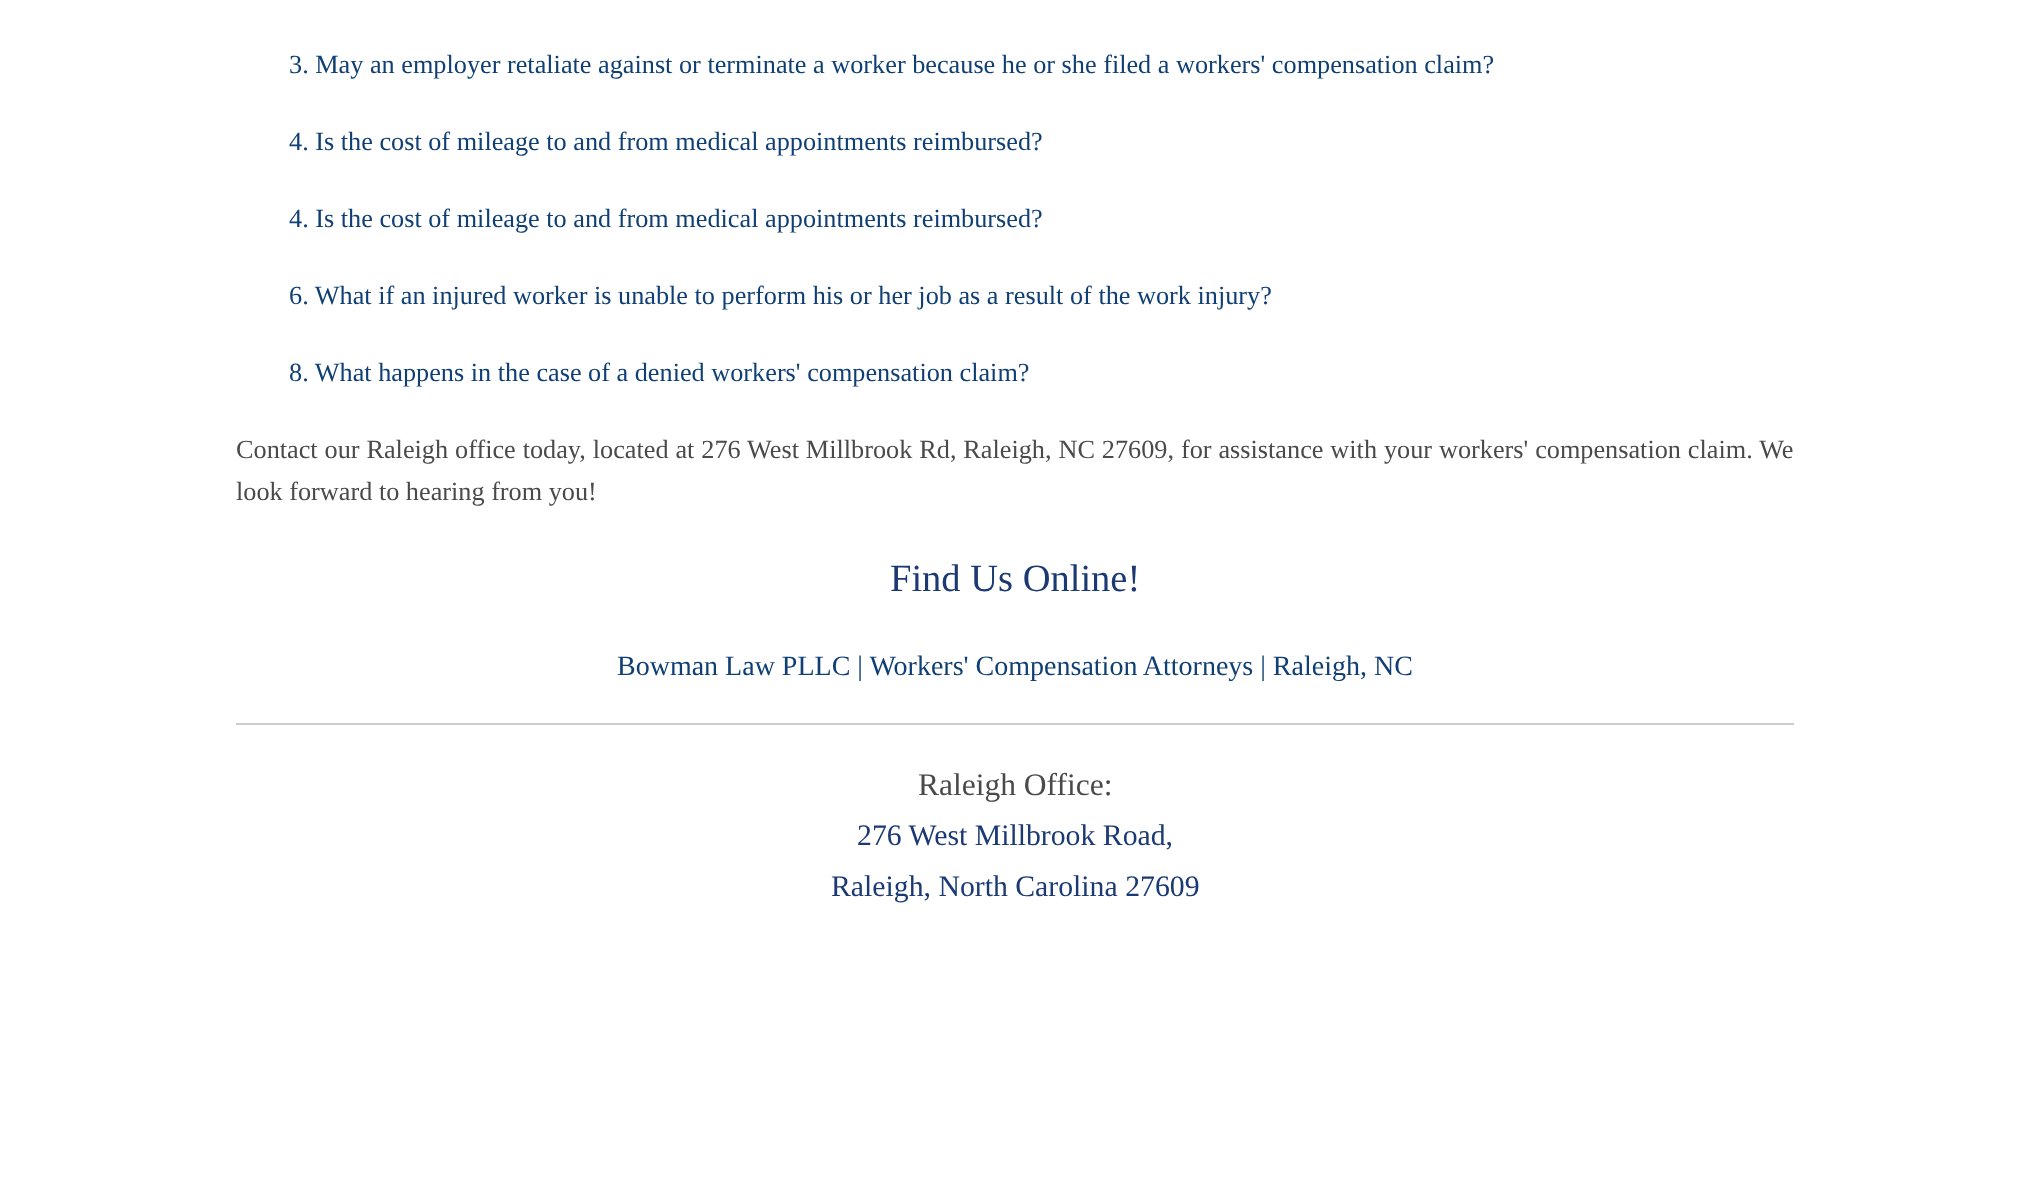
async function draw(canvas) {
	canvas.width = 2030;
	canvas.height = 1185;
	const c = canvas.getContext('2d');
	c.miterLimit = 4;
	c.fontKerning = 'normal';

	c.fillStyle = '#fff';
	c.fillRect(0, 0, 2030, 1185);
	c.font = '26.25px Liberation Serif';
	c.fillStyle = '#0f3f74';
	for (const [text, x, y] of [
		['3. May an employer retaliate against or terminate a worker because he or she filed a workers\' compensation claim?', 289, 73],
		['4. Is the cost of mileage to and from medical appointments reimbursed?', 289, 150],
		['4. Is the cost of mileage to and from medical appointments reimbursed?', 289, 227],
		['6. What if an injured worker is unable to perform his or her job as a result of the work injury?', 289, 304],
		['8. What happens in the case of a denied workers\' compensation claim?', 289, 381],
	]) {
		c.fillText(text, x, y);
	}
	c.wordSpacing = '0.35px';
	c.fillStyle = '#4a4a4a';
	c.fillText('Contact our Raleigh office today, located at 276 West Millbrook Rd, Raleigh, NC 27609, for assistance with your workers\' compensation claim. We', 236, 458);
	c.wordSpacing = '0px';
	c.fillText('look forward to hearing from you!', 236, 500);
	c.font = '38.5px Liberation Serif';
	c.fillStyle = '#1b3973';
	c.fillText('Find Us Online!', 890, 591);
	c.font = '28px Liberation Serif';
	c.fillStyle = '#0f3f74';
	c.fillText('Bowman Law PLLC | Workers\' Compensation Attorneys | Raleigh, NC', 617, 675);
	c.fillStyle = '#ccc';
	c.fillRect(236, 723, 1558, 2);
	c.font = '31.5px Liberation Serif';
	c.fillStyle = '#4a4a4a';
	c.fillText('Raleigh Office:', 918, 795);
	c.font = '29.75px Liberation Serif';
	c.fillStyle = '#1b3973';
	c.fillText('276 West Millbrook Road,', 857, 845);
	c.fillText('Raleigh, North Carolina 27609', 831, 896);
}

draw(document.querySelector('canvas'));
